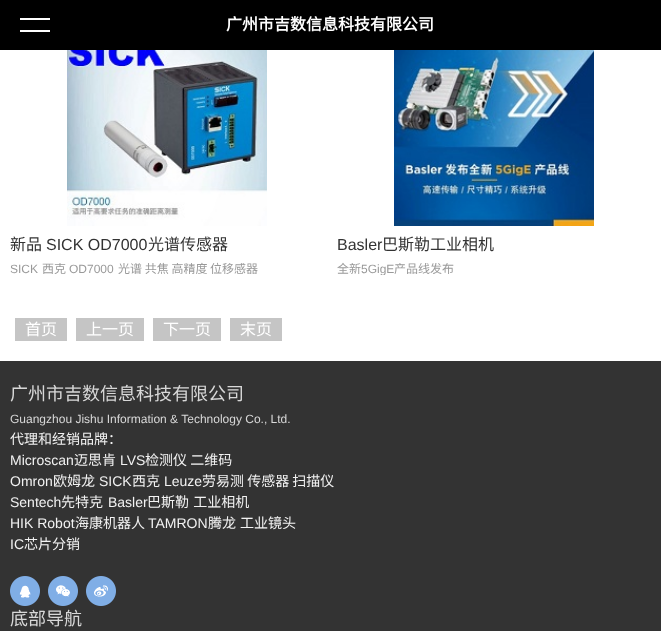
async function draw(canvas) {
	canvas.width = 661;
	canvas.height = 631;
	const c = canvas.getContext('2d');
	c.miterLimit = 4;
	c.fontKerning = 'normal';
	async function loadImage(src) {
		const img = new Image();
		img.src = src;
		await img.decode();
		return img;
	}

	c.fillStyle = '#fff';
	c.fillRect(0, 0, 661, 631);
	for (const [x, y, w, h, color] of [
		[0, 0, 661, 50, '#000'],
		[20, 18, 30, 2, '#fff'],
		[20, 30, 30, 2, '#fff'],
	]) {
		c.fillStyle = color;
		c.fillRect(x, y, w, h);
	}
	c.font = 'bold 16px Noto Sans CJK SC';
	c.fillText('广州市吉数信息科技有限公司', 226, 30);
	c.drawImage(await loadImage('img1.png'), 67, 50, 200, 176);
	c.font = '16px Noto Sans CJK SC';
	c.fillStyle = '#333';
	c.fillText('新品', 10, 250);
	c.font = '16px Liberation Sans';
	c.fillText('SICK OD7000', 46, 250);
	c.font = '16px Noto Sans CJK SC';
	c.fillText('光谱传感器', 148, 250);
	c.font = '12px Liberation Sans';
	c.fillStyle = '#999';
	c.fillText('SICK', 10, 273);
	c.font = '12px Noto Sans CJK SC';
	c.fillText('西克', 42, 273);
	c.font = '12px Liberation Sans';
	c.fillText('OD7000', 69, 273);
	c.font = '12px Noto Sans CJK SC';
	c.fillText('光谱 共焦 高精度 位移感器', 118, 273);
	c.drawImage(await loadImage('img2.png'), 394, 50, 200, 176);
	c.font = '16px Liberation Sans';
	c.fillStyle = '#333';
	c.fillText('Basler', 337, 250);
	c.font = '16px Noto Sans CJK SC';
	c.fillText('巴斯勒工业相机', 382, 250);
	c.font = '12px Noto Sans CJK SC';
	c.fillStyle = '#999';
	c.fillText('全新', 337, 273);
	c.save();
	c.beginPath();
	c.rect(337, 263, 314, 12);
	c.clip();
	c.font = '12px Liberation Sans';
	c.fillText('5GigE', 361, 273);
	c.restore();
	c.fillText('产品线发布', 394, 273);
	c.fillStyle = '#c5c5c5';
	c.fillRect(15, 318, 52, 23);
	c.font = '16px Noto Sans CJK SC';
	c.fillStyle = '#fff';
	c.fillText('首页', 25, 335);
	c.fillStyle = '#c5c5c5';
	c.fillRect(76, 318, 68, 23);
	c.fillStyle = '#fff';
	c.fillText('上一页', 86, 335);
	c.fillStyle = '#c5c5c5';
	c.fillRect(153, 318, 68, 23);
	c.fillStyle = '#fff';
	c.fillText('下一页', 163, 335);
	c.fillStyle = '#c5c5c5';
	c.fillRect(230, 318, 52, 23);
	c.fillStyle = '#fff';
	c.fillText('末页', 240, 335);
	c.fillStyle = '#333';
	c.fillRect(0, 361, 661, 270);
	c.font = '18px Noto Sans CJK SC';
	c.fillStyle = '#d8d8d8';
	c.fillText('广州市吉数信息科技有限公司', 10, 400);
	c.font = '12px Liberation Sans';
	c.fillText('Guangzhou Jishu Information & Technology Co., Ltd.', 10, 423);
	c.font = '14px Noto Sans CJK SC';
	c.fillStyle = '#f2f2f2';
	c.fillText('代理和经销品牌：', 10, 444);
	c.font = '14px Liberation Sans';
	c.fillText('Microscan', 10, 465);
	c.font = '14px Noto Sans CJK SC';
	c.fillText('迈思肯', 74, 465);
	c.font = '14px Liberation Sans';
	c.fillText('LVS', 120, 465);
	c.font = '14px Noto Sans CJK SC';
	c.fillText('检测仪 二维码', 145, 465);
	c.font = '14px Liberation Sans';
	c.fillText('Omron', 10, 486);
	c.font = '14px Noto Sans CJK SC';
	c.fillText('欧姆龙', 53, 486);
	c.font = '14px Liberation Sans';
	c.fillText('SICK', 99, 486);
	c.font = '14px Noto Sans CJK SC';
	c.fillText('西克', 132, 486);
	c.font = '14px Liberation Sans';
	c.fillText('Leuze', 164, 486);
	c.font = '14px Noto Sans CJK SC';
	c.fillText('劳易测 传感器 扫描仪', 202, 486);
	c.font = '14px Liberation Sans';
	c.fillText('Sentech', 10, 507);
	c.font = '14px Noto Sans CJK SC';
	c.fillText('先特克', 61, 507);
	c.font = '14px Liberation Sans';
	c.fillText('Basler', 108, 507);
	c.wordSpacing = '1px';
	c.font = '14px Noto Sans CJK SC';
	c.fillText('巴斯勒 工业相机', 147, 507);
	c.wordSpacing = '0px';
	c.font = '14px Liberation Sans';
	c.fillText('HIK Robot', 10, 528);
	c.font = '14px Noto Sans CJK SC';
	c.fillText('海康机器人', 75, 528);
	c.font = '14px Liberation Sans';
	c.fillText('TAMRON', 148, 528);
	c.font = '14px Noto Sans CJK SC';
	c.fillText('腾龙', 208, 528);
	c.fillText('工业镜头', 240, 528);
	c.font = '14px Liberation Sans';
	c.fillText('IC', 10, 549);
	c.font = '14px Noto Sans CJK SC';
	c.fillText('芯片分销', 24, 549);
	c.drawImage(await loadImage('img3.png'), 10, 576, 30, 30);
	c.drawImage(await loadImage('img4.png'), 48, 576, 30, 30);
	c.drawImage(await loadImage('img5.png'), 86, 576, 30, 30);
	c.font = '18px Noto Sans CJK SC';
	c.fillStyle = '#d8d8d8';
	c.fillText('底部导航', 10, 625);
}

draw(document.querySelector('canvas'));
